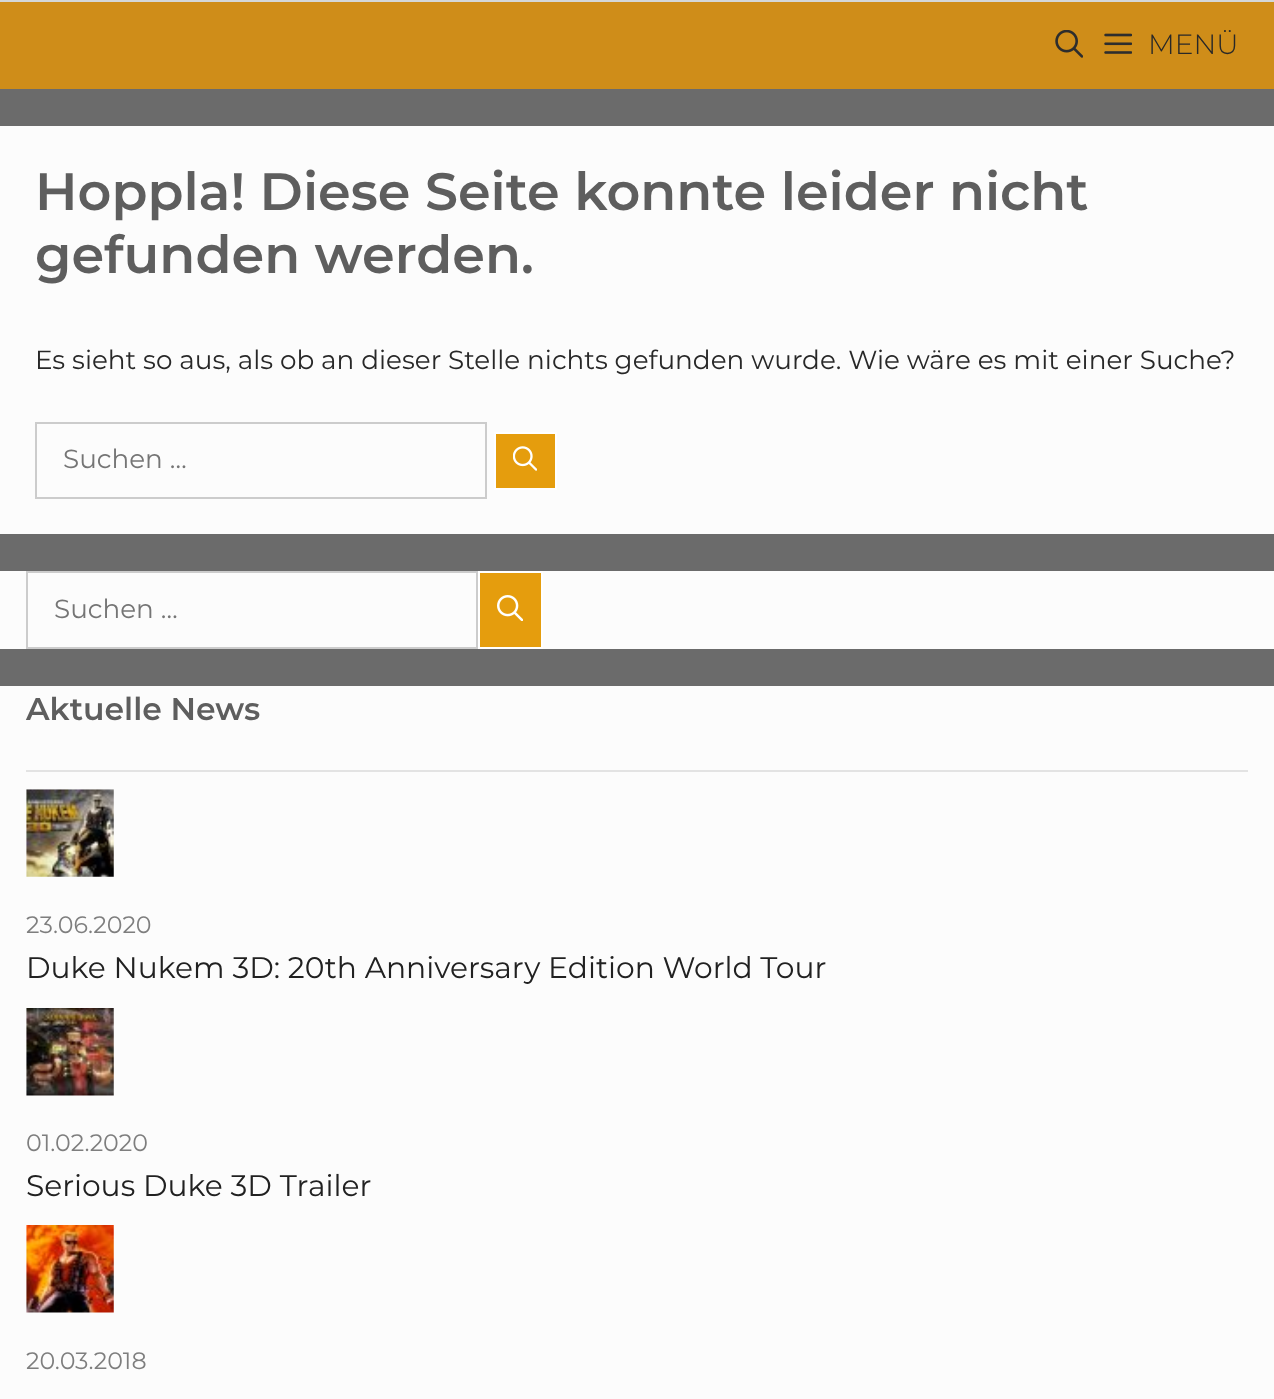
async function draw(canvas) {
	canvas.width = 1274;
	canvas.height = 1399;
	const c = canvas.getContext('2d');
	c.miterLimit = 4;
	c.fontKerning = 'normal';
	async function loadImage(src) {
		const img = new Image();
		img.src = src;
		await img.decode();
		return img;
	}

	c.fillStyle = '#6b6b6b';
	c.fillRect(0, 0, 1274, 1399);
	c.fillStyle = '#cf8d19';
	c.fillRect(0, 2, 1274, 87);
	c.fillStyle = '#d4d7d8';
	c.fillRect(0, 0, 1274, 2);
	c.drawImage(await loadImage('img1.png'), 1055, 30, 28, 28);
	c.drawImage(await loadImage('img2.png'), 1104, 33, 28, 21);
	c.font = '300 28px Montserrat';
	c.fillStyle = '#282828';
	c.fillText('MENÜ', 1148, 54);
	c.fillStyle = '#fcfcfc';
	c.fillRect(0, 126, 1274, 408);
	c.font = '600 52.5px Montserrat';
	c.fillStyle = '#5e5e5e';
	c.fillText('Hoppla! Diese Seite konnte leider nicht', 35, 210);
	c.fillText('gefunden werden.', 35, 273);
	c.font = '26.25px Montserrat';
	c.fillStyle = '#282828';
	c.fillText('Es sieht so aus, als ob an dieser Stelle nichts gefunden wurde. Wie wäre es mit einer Suche?', 35, 369);
	c.strokeStyle = '#ccc';
	c.lineWidth = 2;
	c.strokeRect(36, 423, 450, 75);
	c.fillStyle = '#757575';
	c.fillText('Suchen …', 63, 468);
	c.fillStyle = '#e59d0d';
	c.beginPath();
	c.rect(495, 433, 61, 56);
	c.fill();
	c.strokeStyle = '#fff';
	c.stroke();
	c.drawImage(await loadImage('img3.png'), 513, 446, 24, 25);
	c.fillStyle = '#fcfcfc';
	c.fillRect(0, 571, 1274, 78);
	c.strokeStyle = '#ccc';
	c.strokeRect(27, 572, 450, 76);
	c.fillStyle = '#757575';
	c.fillText('Suchen …', 54, 618);
	c.fillStyle = '#e59d0d';
	c.beginPath();
	c.rect(479, 572, 63, 76);
	c.fill();
	c.strokeStyle = '#fff';
	c.stroke();
	c.drawImage(await loadImage('img4.png'), 497, 595, 26, 26);
	c.fillStyle = '#fcfcfc';
	c.fillRect(0, 686, 1274, 713);
	c.font = '600 31.5px Montserrat';
	c.fillStyle = '#5e5e5e';
	c.fillText('Aktuelle News', 26, 720);
	c.fillStyle = '#e3e3e3';
	c.fillRect(26, 770, 1222, 2);
	c.drawImage(await loadImage('img5.png'), 26, 789, 88, 88);
	c.font = '23.75px Montserrat';
	c.fillStyle = '#7e7e7e';
	c.fillText('23.06.2020', 26, 933);
	c.font = '29.75px Montserrat';
	c.fillStyle = '#212121';
	c.fillText('Duke Nukem 3D: 20th Anniversary Edition World Tour', 26, 978);
	c.drawImage(await loadImage('img6.png'), 26, 1008, 88, 88);
	c.font = '23.75px Montserrat';
	c.fillStyle = '#7e7e7e';
	c.fillText('01.02.2020', 26, 1151);
	c.font = '29.75px Montserrat';
	c.fillStyle = '#212121';
	c.fillText('Serious Duke 3D Trailer', 26, 1196);
	c.drawImage(await loadImage('img7.png'), 26, 1225, 88, 88);
	c.font = '23.75px Montserrat';
	c.fillStyle = '#7e7e7e';
	c.fillText('20.03.2018', 26, 1369);
}

draw(document.querySelector('canvas'));
